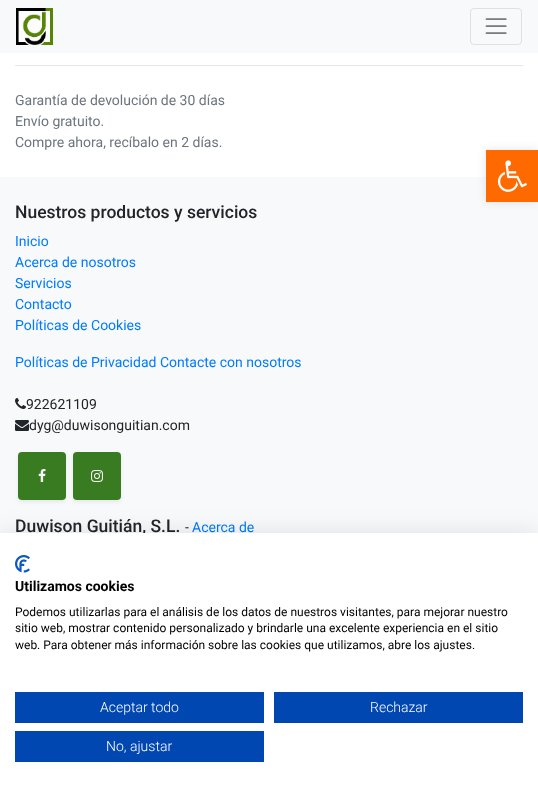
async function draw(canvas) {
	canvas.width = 538;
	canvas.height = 789;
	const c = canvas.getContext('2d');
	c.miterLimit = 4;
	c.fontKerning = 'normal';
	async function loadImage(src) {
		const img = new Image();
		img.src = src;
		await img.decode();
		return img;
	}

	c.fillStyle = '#fff';
	c.fillRect(0, 0, 538, 789);
	c.fillStyle = '#f8f9fa';
	c.fillRect(0, 0, 538, 53);
	c.drawImage(await loadImage('img1.png'), 16, 8, 37, 37);
	c.beginPath();
	c.roundRect(470.5, 8.5, 51, 36, 3.5);
	c.strokeStyle = '#dfe0e1';
	c.stroke();
	c.drawImage(await loadImage('img2.png'), 485, 18, 22, 16);
	c.fillStyle = '#e6e6e6';
	c.fillRect(15, 65, 508, 1);
	c.font = '14px Roboto';
	c.fillStyle = '#6c757d';
	for (const [text, x, y] of [
		['Garantía de devolución de 30 días', 15, 105],
		['Envío gratuito.', 15, 126],
		['Compre ahora, recíbalo en 2 días.', 15, 147],
	]) {
		c.fillText(text, x, y);
	}
	c.fillStyle = '#f8f9fa';
	c.fillRect(0, 177, 538, 356);
	c.font = '500 17.5px Roboto';
	c.fillStyle = '#212529';
	c.fillText('Nuestros productos y servicios', 15, 218);
	c.font = '14px Roboto';
	c.fillStyle = '#007bff';
	for (const [text, x, y] of [
		['Inicio', 15, 246],
		['Acerca de nosotros', 15, 267],
		['Servicios', 15, 288],
		['Contacto', 15, 309],
		['Políticas de Cookies', 15, 330],
		['Políticas de Privacidad Contacte con nosotros', 15, 367],
	]) {
		c.fillText(text, x, y);
	}
	c.drawImage(await loadImage('img3.png'), 15, 398, 11, 11);
	c.fillStyle = '#212529';
	c.fillText('922621109', 26, 409);
	c.drawImage(await loadImage('img4.png'), 15, 420, 14, 11);
	c.fillText('dyg@duwisonguitian.com', 29, 430);
	c.fillStyle = '#00000012';
	c.filter = 'blur(2px)';
	c.beginPath();
	c.roundRect(18, 454, 48, 48, 4);
	c.fill();
	c.filter = 'none';
	c.fillStyle = '#397b21';
	c.beginPath();
	c.roundRect(18, 452, 48, 48, 4);
	c.fill();
	c.drawImage(await loadImage('img5.png'), 38, 469, 8, 13);
	c.fillStyle = '#00000012';
	c.filter = 'blur(2px)';
	c.beginPath();
	c.roundRect(73, 454, 48, 48, 4);
	c.fill();
	c.filter = 'none';
	c.fillStyle = '#397b21';
	c.beginPath();
	c.roundRect(73, 452, 48, 48, 4);
	c.fill();
	c.drawImage(await loadImage('img6.png'), 91, 470, 12, 12);
	c.font = '500 17.5px Roboto';
	c.fillStyle = '#212529';
	c.fillText('Duwison Guitián, S.L.', 15, 532);
	c.font = '14px Roboto';
	c.fillText('-', 185, 532);
	c.fillStyle = '#007bff';
	c.fillText('Acerca de', 192, 532);
	c.fillStyle = '#0000001a';
	c.filter = 'blur(5px)';
	c.beginPath();
	c.rect(486, 150, 52, 52);
	c.fill();
	c.filter = 'none';
	c.fillStyle = '#ff6a00';
	c.fillRect(486, 150, 52, 52);
	c.drawImage(await loadImage('img7.png'), 497, 160, 30, 32);
	c.fillStyle = '#0000001a';
	c.filter = 'blur(12px)';
	c.beginPath();
	c.rect(0, 533, 538, 256);
	c.fill();
	c.filter = 'none';
	c.fillStyle = '#fff';
	c.fillRect(0, 533, 538, 256);
	c.drawImage(await loadImage('img8.png'), 15, 555, 15, 18);
	c.font = 'bold 14px Roboto';
	c.fillStyle = '#000';
	c.fillText('Utilizamos cookies', 15, 591);
	c.font = '12px Roboto';
	for (const [text, x, y] of [
		['Podemos utilizarlas para el análisis de los datos de nuestros visitantes, para mejorar nuestro', 15, 616],
		['sitio web, mostrar contenido personalizado y brindarle una excelente experiencia en el sitio', 15, 632],
		['web. Para obtener más información sobre las cookies que utilizamos, abre los ajustes.', 15, 649],
	]) {
		c.fillText(text, x, y);
	}
	c.fillStyle = '#0047b2';
	c.fillRect(15, 692, 249, 31);
	c.font = '300 14px Roboto';
	c.fillStyle = '#fff';
	c.fillText('Aceptar todo', 100, 712);
	c.fillStyle = '#0047b2';
	c.fillRect(274, 692, 249, 31);
	c.fillStyle = '#fff';
	c.fillText('Rechazar', 370, 712);
	c.fillStyle = '#0047b2';
	c.fillRect(15, 731, 249, 31);
	c.fillStyle = '#fff';
	c.fillText('No, ajustar', 106, 751);
}

draw(document.querySelector('canvas'));
